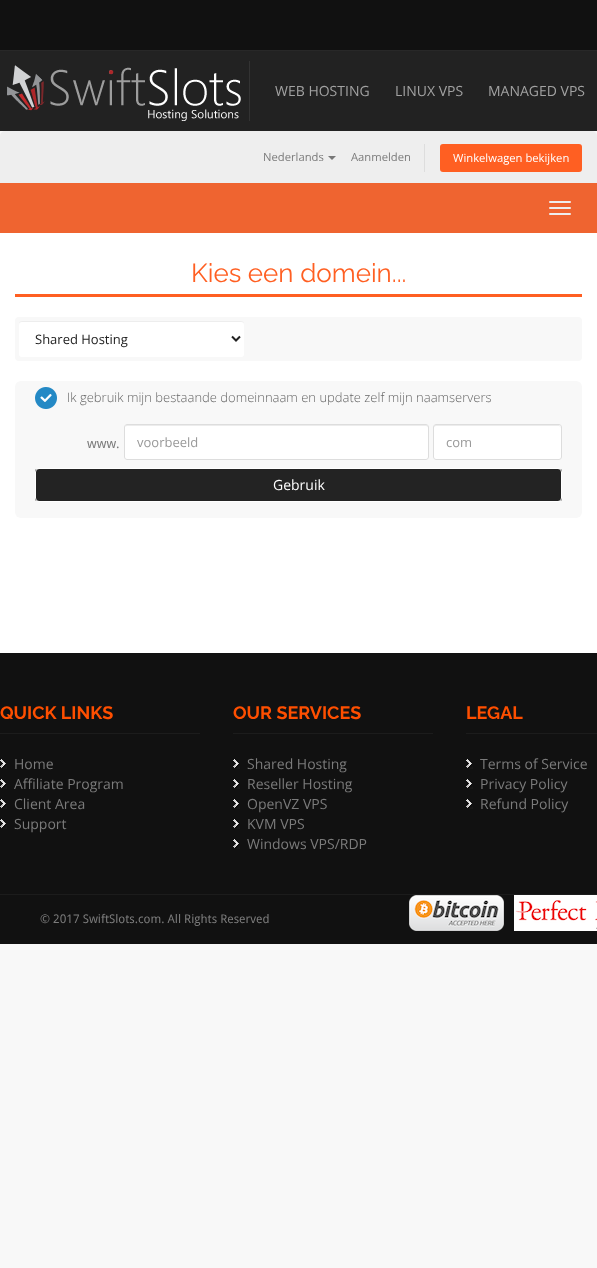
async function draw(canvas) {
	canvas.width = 597;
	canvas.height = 1268;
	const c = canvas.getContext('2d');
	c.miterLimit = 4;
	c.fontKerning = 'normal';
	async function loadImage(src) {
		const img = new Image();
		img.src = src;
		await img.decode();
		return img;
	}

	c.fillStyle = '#f8f8f8';
	c.fillRect(0, 0, 597, 1268);
	for (const [x, y, w, h, color] of [
		[0, 0, 597, 50, '#111'],
		[0, 51, 597, 80, '#222'],
		[0, 50, 597, 1, '#282828'],
	]) {
		c.fillStyle = color;
		c.fillRect(x, y, w, h);
	}
	c.drawImage(await loadImage('img1.png'), 7, 65, 234, 56);
	c.fillStyle = '#333';
	c.fillRect(249, 61, 1, 60);
	c.font = '14px Open Sans';
	c.fillStyle = '#a2a2a2';
	for (const [text, x, y] of [
		['WEB HOSTING', 275, 96],
		['LINUX VPS', 395, 96],
		['MANAGED VPS', 488, 96],
	]) {
		c.fillText(text, x, y);
	}
	c.fillStyle = '#eee';
	c.beginPath();
	c.roundRect(0, 131, 597, 52, [5, 5, 0, 0]);
	c.fill();
	c.font = '11.25px Open Sans';
	c.fillStyle = '#7b7b7b';
	c.fillText('Nederlands', 263, 161);
	c.fillStyle = '#777';
	c.beginPath();
	c.moveTo(328, 156);
	c.lineTo(336, 156);
	c.lineTo(332, 160);
	c.closePath();
	c.fill();
	c.fillStyle = '#7b7b7b';
	c.fillText('Aanmelden', 351, 161);
	c.fillStyle = '#ddd';
	c.fillRect(424, 144, 1, 28);
	c.fillStyle = '#ff5f22';
	c.beginPath();
	c.roundRect(440, 144, 142, 28, 3);
	c.fill();
	c.fillStyle = '#fff';
	c.fillText('Winkelwagen bekijken', 453, 162);
	c.fillStyle = '#ef6430';
	c.fillRect(0, 183, 597, 50);
	c.fillStyle = '#eee';
	c.beginPath();
	c.roundRect(549, 201, 22, 2, 1);
	c.fill();
	c.beginPath();
	c.roundRect(549, 207, 22, 2, 1);
	c.fill();
	c.beginPath();
	c.roundRect(549, 213, 22, 2, 1);
	c.fill();
	c.fillStyle = '#fff';
	c.fillRect(0, 233, 597, 420);
	c.fillStyle = '#ff5f22';
	c.fillRect(15, 294, 567, 3);
	c.font = '26px Raleway';
	c.fillText('Kies een domein...', 191, 282);
	c.fillStyle = '#f8f8f8';
	c.beginPath();
	c.roundRect(15, 317, 567, 44, 4);
	c.fill();
	c.fillStyle = '#fff';
	c.beginPath();
	c.roundRect(19, 321, 225, 36, 3);
	c.fill();
	c.fillStyle = '#00000012';
	c.beginPath();
	c.moveTo(22, 322);
	c.lineTo(241, 322);
	c.bezierCurveTo(243, 322, 244, 323, 244, 325);
	c.lineTo(244, 324);
	c.bezierCurveTo(244, 322, 243, 321, 241, 321);
	c.lineTo(22, 321);
	c.bezierCurveTo(20, 321, 19, 322, 19, 324);
	c.lineTo(19, 325);
	c.bezierCurveTo(19, 323, 20, 322, 22, 322);
	c.closePath();
	c.fill();
	c.beginPath();
	c.moveTo(232, 336.5);
	c.lineTo(236, 340.5);
	c.lineTo(240, 336.5);
	c.strokeStyle = '#222';
	c.lineWidth = 2;
	c.stroke();
	c.font = '13px Open Sans';
	c.fillStyle = '#222';
	c.fillText('Shared Hosting', 35, 344);
	c.fillStyle = '#f8f8f8';
	c.beginPath();
	c.roundRect(15, 381, 567, 137, 6);
	c.fill();
	c.drawImage(await loadImage('img2.png'), 35, 387, 22, 22);
	c.font = '300 13px Open Sans';
	c.fillStyle = '#666';
	c.fillText('Ik gebruik mijn bestaande domeinnaam en update zelf mijn naamservers', 67, 402);
	c.font = '13px Droid Sans';
	c.fillStyle = '#7b7b7b';
	c.fillText('www.', 87, 448);
	c.fillStyle = '#fff';
	c.beginPath();
	c.roundRect(124, 424, 305, 36, 3);
	c.fill();
	c.fillStyle = '#ececec';
	c.beginPath();
	c.moveTo(127, 426);
	c.lineTo(426, 426);
	c.bezierCurveTo(427, 426, 428, 427, 428, 428);
	c.bezierCurveTo(428, 427, 428, 425, 426, 425);
	c.lineTo(126, 425);
	c.lineTo(125, 428);
	c.bezierCurveTo(125, 427, 126, 426, 127, 426);
	c.closePath();
	c.fill();
	c.beginPath();
	c.roundRect(124.5, 424.5, 304, 35, 2.5);
	c.strokeStyle = '#ddd';
	c.lineWidth = 1;
	c.stroke();
	c.font = '13px Open Sans';
	c.fillStyle = '#999';
	c.fillText('voorbeeld', 137, 447);
	c.fillStyle = '#fff';
	c.beginPath();
	c.roundRect(433, 424, 129, 36, 3);
	c.fill();
	c.fillStyle = '#ececec';
	c.beginPath();
	c.moveTo(436, 426);
	c.lineTo(559, 426);
	c.lineTo(561, 427);
	c.lineTo(561, 428);
	c.lineTo(560, 426);
	c.lineTo(559, 425);
	c.lineTo(435, 425);
	c.bezierCurveTo(434, 426, 434, 427, 434, 428);
	c.bezierCurveTo(434, 427, 435, 426, 436, 426);
	c.closePath();
	c.fill();
	c.beginPath();
	c.roundRect(433.5, 424.5, 128, 35, 2.5);
	c.stroke();
	c.fillStyle = '#999';
	c.fillText('com', 446, 447);
	c.save();
	c.beginPath();
	c.roundRect(35, 468, 527, 34, 4);
	c.clip();
	c.fillStyle = '#232323';
	c.fillRect(35, 469, 527, 32);
	c.restore();
	c.beginPath();
	c.roundRect(35.5, 468.5, 526, 33, 3.5);
	c.strokeStyle = '#fff';
	c.stroke();
	c.font = '14px Open Sans';
	c.fillStyle = '#fff';
	c.fillText('Gebruik', 273, 490);
	c.fillStyle = '#111';
	c.fillRect(0, 653, 597, 291);
	c.fillStyle = '#1c1c1c';
	c.fillRect(0, 733, 200, 1);
	c.font = 'bold 18px Raleway';
	c.fillStyle = '#ff4f00';
	c.fillText('QUICK LINKS', 0, 719);
	c.drawImage(await loadImage('img3.png'), 0, 759, 7, 10);
	c.font = '14px Open Sans';
	c.fillStyle = '#7b7b7b';
	c.fillText('Home', 14, 769);
	c.drawImage(await loadImage('img3.png'), 0, 779, 7, 10);
	c.fillText('Affiliate Program', 14, 789);
	c.drawImage(await loadImage('img3.png'), 0, 799, 7, 10);
	c.fillText('Client Area', 14, 809);
	c.drawImage(await loadImage('img3.png'), 0, 819, 7, 10);
	c.fillText('Support', 14, 829);
	c.fillStyle = '#1c1c1c';
	c.fillRect(233, 733, 200, 1);
	c.font = 'bold 18px Raleway';
	c.fillStyle = '#ff4f00';
	c.fillText('OUR SERVICES', 233, 719);
	c.drawImage(await loadImage('img3.png'), 233, 759, 7, 10);
	c.font = '14px Open Sans';
	c.fillStyle = '#7b7b7b';
	c.fillText('Shared Hosting', 247, 769);
	c.drawImage(await loadImage('img3.png'), 233, 779, 7, 10);
	c.fillText('Reseller Hosting', 247, 789);
	c.drawImage(await loadImage('img3.png'), 233, 799, 7, 10);
	c.fillText('OpenVZ VPS', 247, 809);
	c.drawImage(await loadImage('img3.png'), 233, 819, 7, 10);
	c.fillText('KVM VPS', 247, 829);
	c.drawImage(await loadImage('img3.png'), 233, 839, 7, 10);
	c.fillText('Windows VPS/RDP', 247, 849);
	c.fillStyle = '#1c1c1c';
	c.fillRect(466, 733, 131, 1);
	c.font = 'bold 18px Raleway';
	c.fillStyle = '#ff4f00';
	c.fillText('LEGAL', 466, 719);
	c.drawImage(await loadImage('img3.png'), 466, 759, 7, 10);
	c.font = '14px Open Sans';
	c.fillStyle = '#7b7b7b';
	c.fillText('Terms of Service', 480, 769);
	c.drawImage(await loadImage('img3.png'), 466, 779, 7, 10);
	c.fillText('Privacy Policy', 480, 789);
	c.drawImage(await loadImage('img3.png'), 466, 799, 7, 10);
	c.fillText('Refund Policy', 480, 809);
	c.fillStyle = '#1c1c1c';
	c.fillRect(0, 894, 597, 1);
	c.font = '12px Droid Sans';
	c.fillStyle = '#7b7b7b';
	c.fillText('© 2017 SwiftSlots.com. All Rights Reserved', 40, 923);
	c.drawImage(await loadImage('img4.png'), 409, 895, 95, 36);
	c.drawImage(await loadImage('img5.png'), 514, 895, 83, 36);
}

draw(document.querySelector('canvas'));
